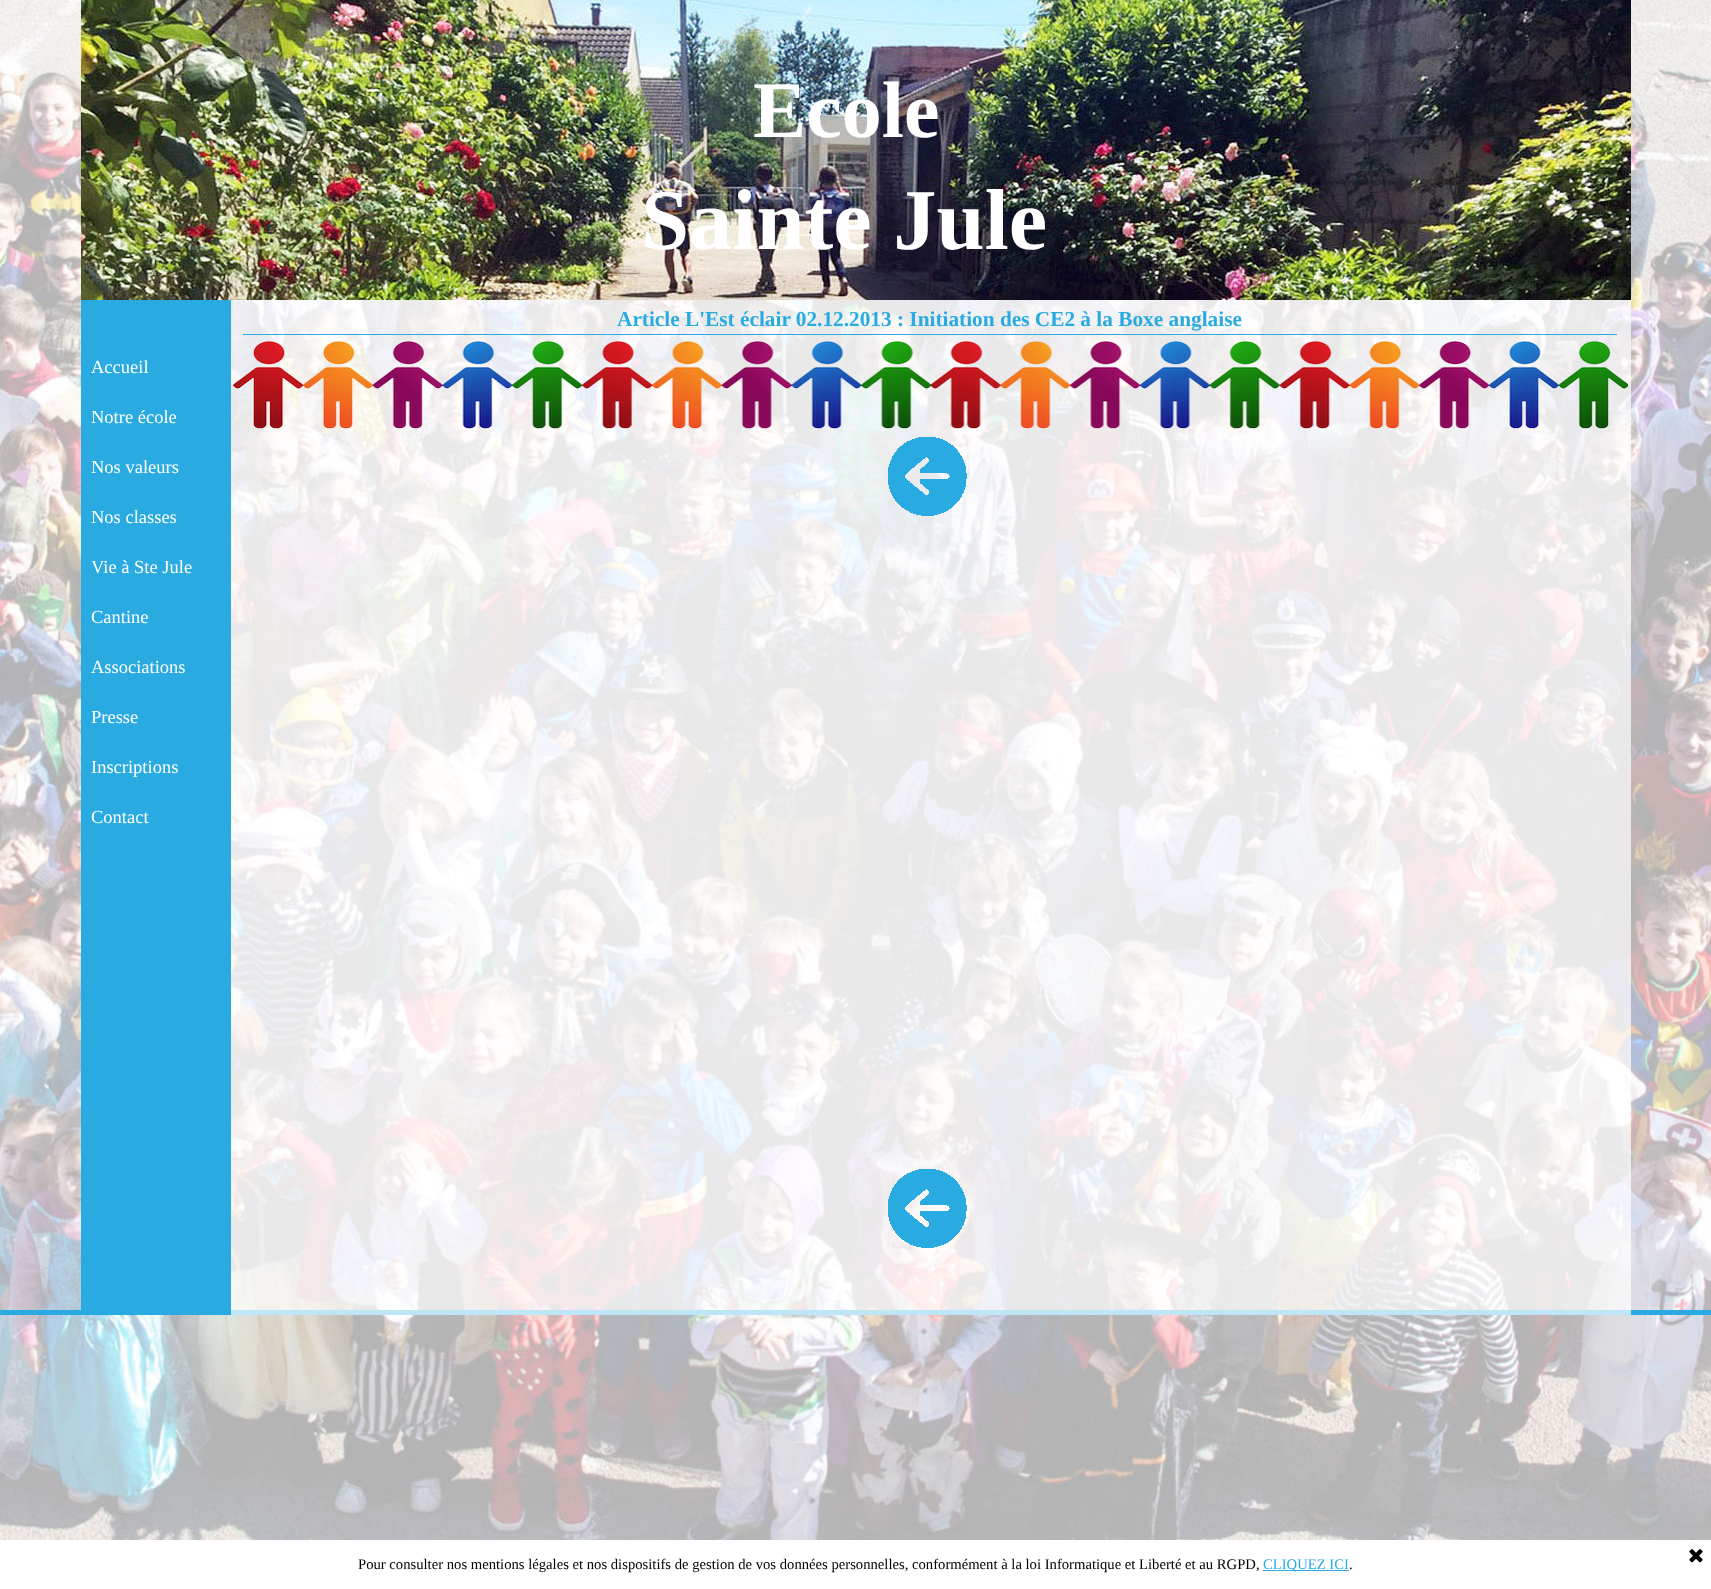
async function draw(canvas) {
	canvas.width = 1711;
	canvas.height = 1589;
	const c = canvas.getContext('2d');
	c.miterLimit = 4;
	c.fontKerning = 'normal';
	async function loadImage(src) {
		const img = new Image();
		img.src = src;
		await img.decode();
		return img;
	}

	c.fillStyle = '#fff';
	c.fillRect(0, 0, 1711, 1589);
	c.drawImage(await loadImage('img1.png'), 0, 0, 1711, 1540);
	c.drawImage(await loadImage('img2.png'), 81, 0, 1550, 300);
	c.font = 'bold 80px Liberation Serif';
	c.fillText('Ecole', 753, 137);
	c.font = 'bold 86.5px Liberation Serif';
	c.fillText('Sainte Jule', 641, 249);
	for (const [x, y, w, h, color] of [
		[0, 1310, 1711, 5, '#29abe2'],
		[231, 300, 1400, 1015, '#ffffffb3'],
		[243, 334, 1374, 1, '#29abe2'],
	]) {
		c.fillStyle = color;
		c.fillRect(x, y, w, h);
	}
	c.font = 'bold 21.3px Liberation Serif';
	c.fillText('Article L\'Est éclair 02.12.2013 : Initiation des CE2 à la Boxe anglaise', 617, 326);
	c.drawImage(await loadImage('img3.png'), 233, 341, 1395, 88);
	c.drawImage(await loadImage('img4.png'), 888, 437, 79, 79);
	c.drawImage(await loadImage('img5.png'), 888, 1169, 79, 79);
	c.fillRect(81, 300, 150, 1010);
	c.font = '18.5px Liberation Serif';
	c.fillStyle = '#fff';
	for (const [text, x, y] of [
		['Accueil', 91, 373],
		['Notre école', 91, 423],
		['Nos valeurs', 91, 473],
		['Nos classes', 91, 523],
		['Vie à Ste Jule', 91, 573],
		['Cantine', 91, 623],
		['Associations', 91, 673],
		['Presse', 91, 723],
		['Inscriptions', 91, 773],
		['Contact', 91, 823],
	]) {
		c.fillText(text, x, y);
	}
	c.drawImage(await loadImage('img6.png'), 1689, 1549, 14, 14);
	c.font = '14.67px Liberation Serif';
	c.fillStyle = '#000';
	c.fillText('Pour consulter nos mentions légales et nos dispositifs de gestion de vos données personnelles, conformément à la loi Informatique et Liberté et au RGPD,', 358, 1569);
	c.fillStyle = '#29abe2';
	c.fillRect(1263, 1570, 86, 1);
	c.fillText('CLIQUEZ ICI', 1263, 1569);
	c.fillStyle = '#000';
	c.fillText('.', 1349, 1569);
}

draw(document.querySelector('canvas'));
